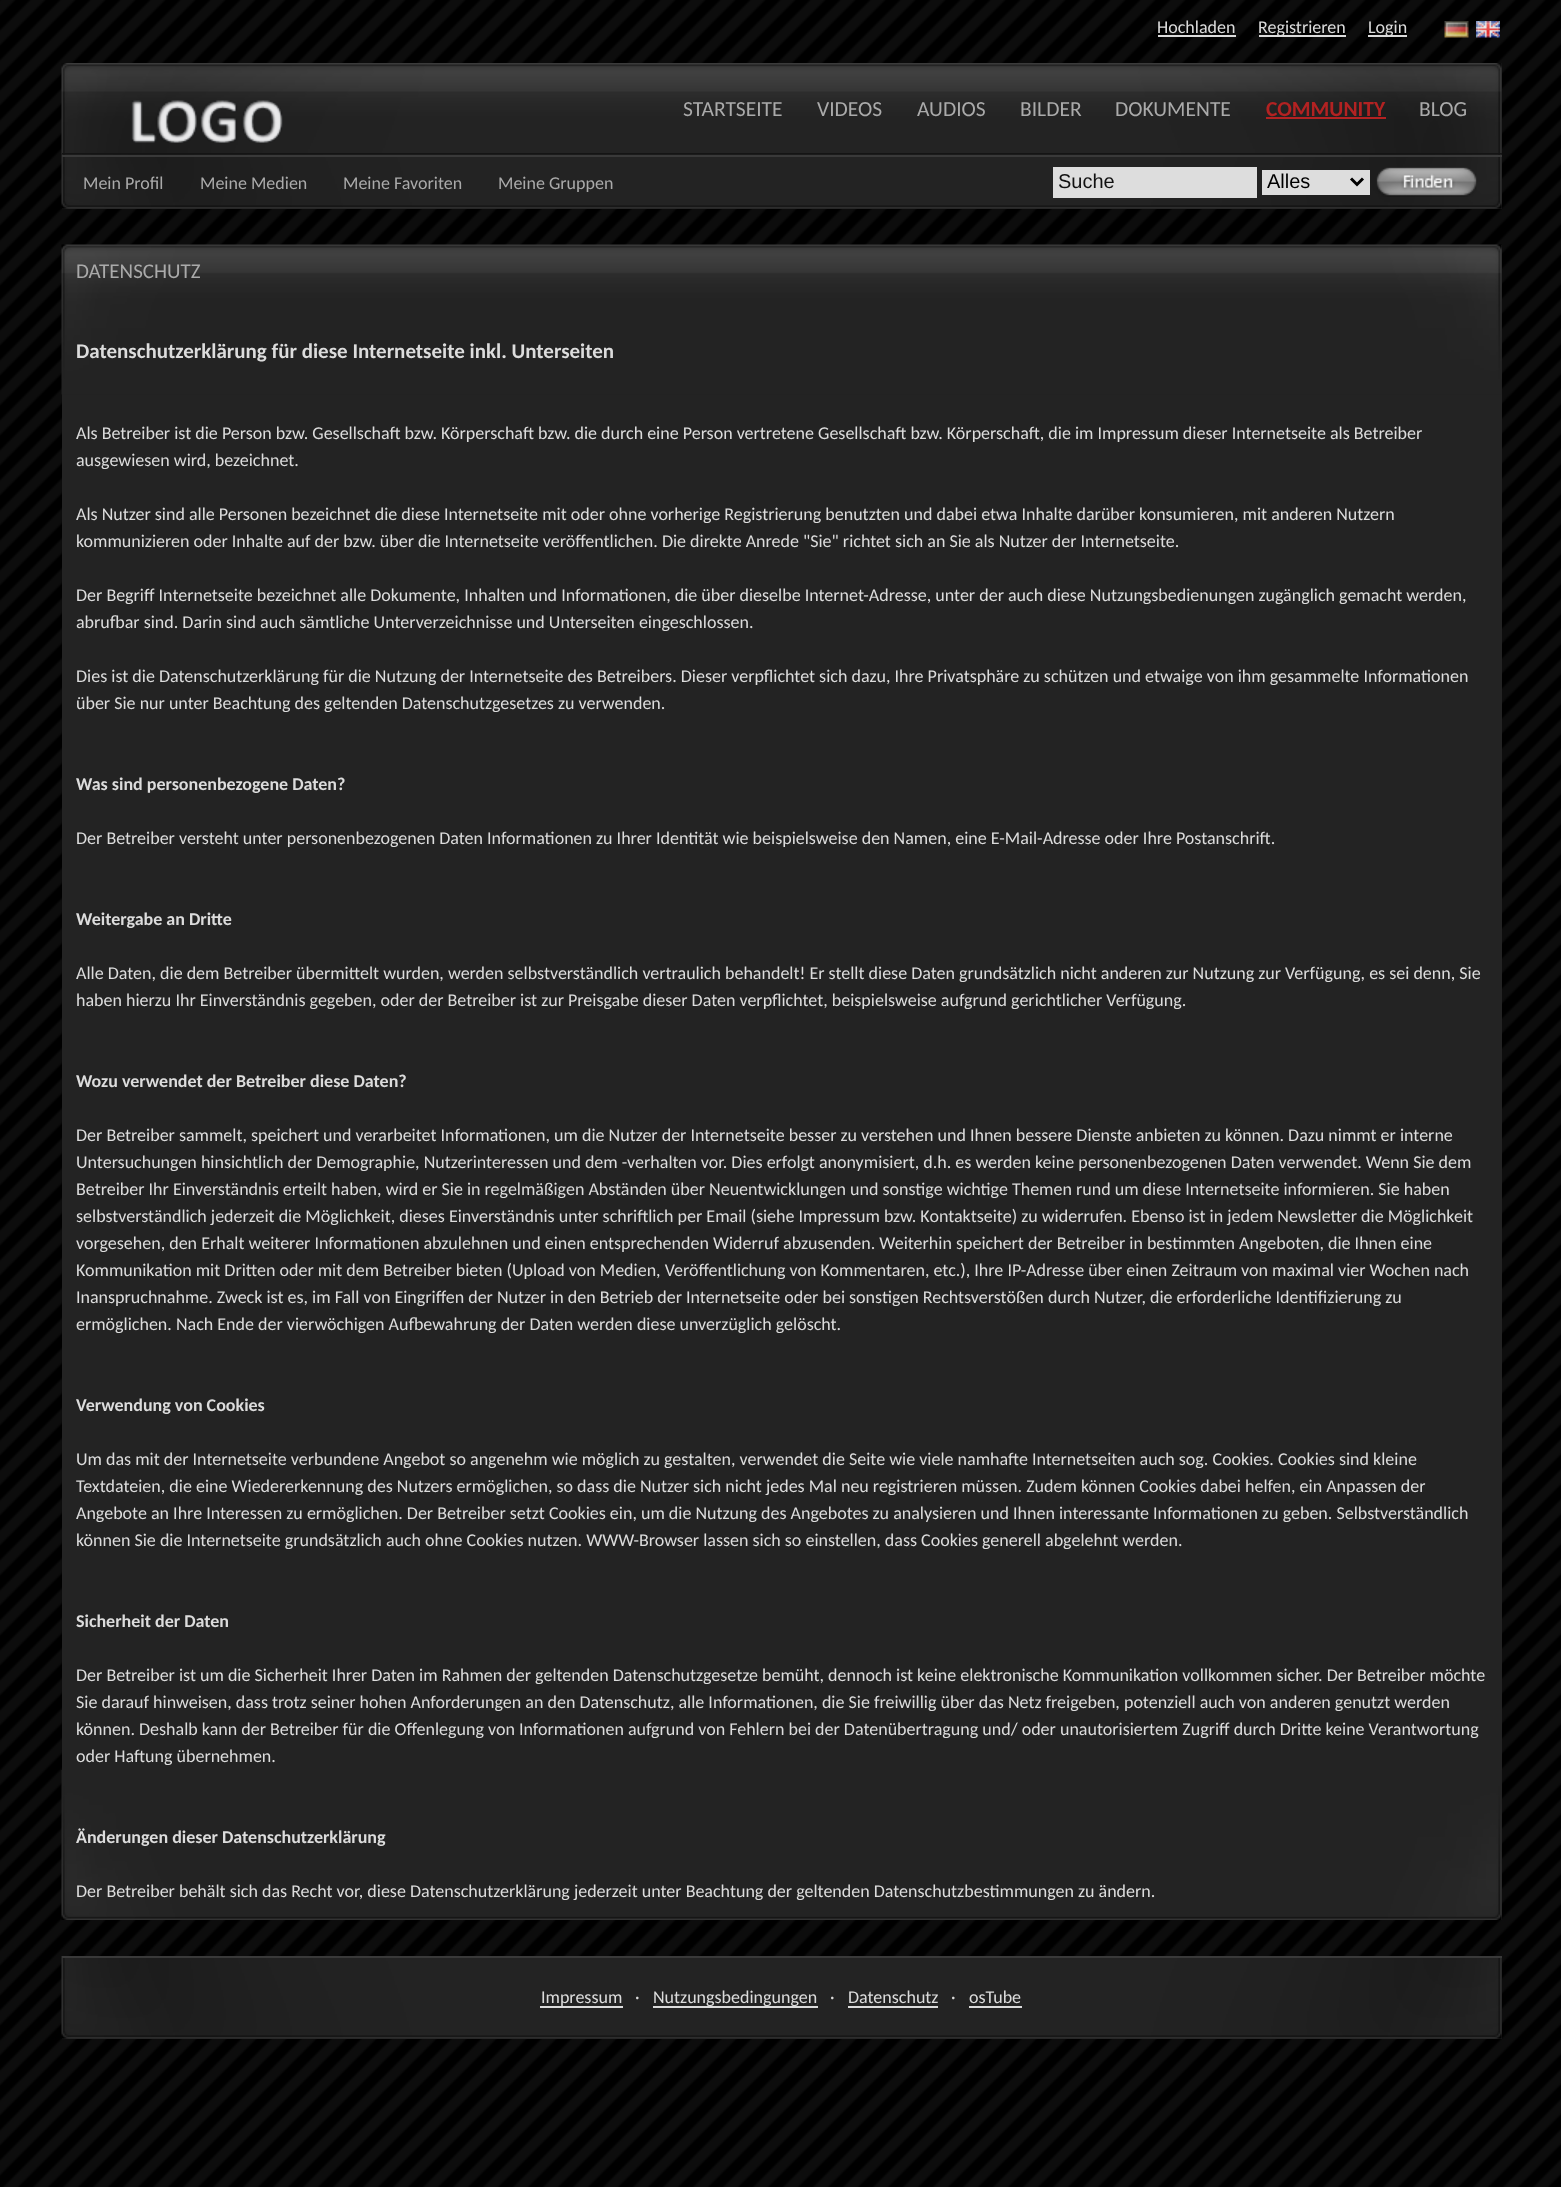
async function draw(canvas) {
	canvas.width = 1561;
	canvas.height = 2187;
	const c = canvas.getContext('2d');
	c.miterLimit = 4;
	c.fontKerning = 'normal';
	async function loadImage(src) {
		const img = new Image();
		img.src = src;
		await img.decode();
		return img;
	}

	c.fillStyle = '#fff';
	c.fillRect(0, 0, 1561, 2187);
	c.drawImage(await loadImage('img1.png'), 0, 0, 1561, 2187);
	c.font = '18px Carlito';
	c.fillStyle = '#dcdcdc';
	c.fillText('Hochladen', 1157, 33);
	c.fillRect(1158, 35, 78, 2);
	c.fillRect(1259, 35, 87, 2);
	c.fillText('Registrieren', 1258, 33);
	c.fillRect(1368, 35, 39, 2);
	c.fillText('Login', 1368, 33);
	c.drawImage(await loadImage('img2.png'), 1444, 21, 25, 17);
	c.drawImage(await loadImage('img3.png'), 1476, 21, 24, 17);
	c.fillStyle = '#1d1d1d';
	c.fillRect(1501, 63, 1, 90);
	c.drawImage(await loadImage('img5.png'), 61, 63, 1441, 92);
	c.drawImage(await loadImage('img4.png'), 131, 100, 152, 43);
	c.fillStyle = '#141414';
	c.fillRect(62, 153, 1440, 2);
	c.font = '21.5px Carlito';
	c.fillStyle = '#aaa';
	for (const [text, x, y] of [
		['STARTSEITE', 683, 116],
		['VIDEOS', 817, 116],
		['AUDIOS', 917, 116],
		['BILDER', 1020, 116],
		['DOKUMENTE', 1115, 116],
	]) {
		c.fillText(text, x, y);
	}
	c.font = 'bold 21.5px Carlito';
	c.fillStyle = '#b22222';
	c.fillText('COMMUNITY', 1266, 116);
	c.fillRect(1266, 117, 120, 2);
	c.font = '21.5px Carlito';
	c.fillStyle = '#aaa';
	c.fillText('BLOG', 1419, 116);
	c.fillStyle = '#1d1d1d';
	c.fillRect(62, 157, 1440, 52);
	c.drawImage(await loadImage('img6.png'), 61, 154, 1441, 55);
	c.fillStyle = '#393939';
	c.fillRect(62, 155, 1440, 2);
	c.font = '18px Carlito';
	c.fillStyle = '#aaa';
	for (const [text, x, y] of [
		['Mein Profil', 83, 189],
		['Meine Medien', 200, 189],
		['Meine Favoriten', 343, 189],
		['Meine Gruppen', 498, 189],
	]) {
		c.fillText(text, x, y);
	}
	c.fillStyle = '#ddd';
	c.fillRect(1053, 167, 204, 31);
	c.font = '20px Liberation Sans';
	c.fillStyle = '#111';
	c.fillText('Suche', 1058, 188);
	c.fillStyle = '#ddd';
	c.fillRect(1262, 170, 108, 25);
	c.beginPath();
	c.moveTo(1351, 178.5);
	c.lineTo(1357, 184.5);
	c.lineTo(1363, 178.5);
	c.strokeStyle = '#000';
	c.lineWidth = 3;
	c.stroke();
	c.fillStyle = '#000';
	c.fillText('Alles', 1267, 188);
	c.drawImage(await loadImage('img7.png'), 1376, 167, 101, 30);
	c.fillStyle = '#232323';
	c.fillRect(62, 245, 1440, 1675);
	c.drawImage(await loadImage('img8.png'), 61, 244, 1441, 151);
	c.drawImage(await loadImage('img9.png'), 61, 1770, 1441, 150);
	c.font = '21px Carlito';
	c.fillStyle = '#aaa';
	c.fillText('DATENSCHUTZ', 76, 278);
	c.font = 'bold 21px Carlito';
	c.fillStyle = '#dcdcdc';
	c.fillText('Datenschutzerklärung für diese Internetseite inkl. Unterseiten', 76, 358);
	c.font = '18px Carlito';
	for (const [text, x, y] of [
		['Als Betreiber ist die Person bzw. Gesellschaft bzw. Körperschaft bzw. die durch eine Person vertretene Gesellschaft bzw. Körperschaft, die im Impressum dieser Internetseite als Betreiber', 76, 439],
		['ausgewiesen wird, bezeichnet.', 76, 466],
		['Als Nutzer sind alle Personen bezeichnet die diese Internetseite mit oder ohne vorherige Registrierung benutzten und dabei etwa Inhalte darüber konsumieren, mit anderen Nutzern', 76, 520],
		['kommunizieren oder Inhalte auf der bzw. über die Internetseite veröffentlichen. Die direkte Anrede "Sie" richtet sich an Sie als Nutzer der Internetseite.', 76, 547],
		['Der Begriff Internetseite bezeichnet alle Dokumente, Inhalten und Informationen, die über dieselbe Internet-Adresse, unter der auch diese Nutzungsbedienungen zugänglich gemacht werden,', 76, 601],
		['abrufbar sind. Darin sind auch sämtliche Unterverzeichnisse und Unterseiten eingeschlossen.', 76, 628],
		['Dies ist die Datenschutzerklärung für die Nutzung der Internetseite des Betreibers. Dieser verpflichtet sich dazu, Ihre Privatsphäre zu schützen und etwaige von ihm gesammelte Informationen', 76, 682],
		['über Sie nur unter Beachtung des geltenden Datenschutzgesetzes zu verwenden.', 76, 709],
	]) {
		c.fillText(text, x, y);
	}
	c.font = 'bold 18px Carlito';
	c.fillText('Was sind personenbezogene Daten?', 76, 790);
	c.font = '18px Carlito';
	c.fillText('Der Betreiber versteht unter personenbezogenen Daten Informationen zu Ihrer Identität wie beispielsweise den Namen, eine E-Mail-Adresse oder Ihre Postanschrift.', 76, 844);
	c.font = 'bold 18px Carlito';
	c.fillText('Weitergabe an Dritte', 76, 925);
	c.font = '18px Carlito';
	c.fillText('Alle Daten, die dem Betreiber übermittelt wurden, werden selbstverständlich vertraulich behandelt! Er stellt diese Daten grundsätzlich nicht anderen zur Nutzung zur Verfügung, es sei denn, Sie', 76, 979);
	c.fillText('haben hierzu Ihr Einverständnis gegeben, oder der Betreiber ist zur Preisgabe dieser Daten verpflichtet, beispielsweise aufgrund gerichtlicher Verfügung.', 76, 1006);
	c.font = 'bold 18px Carlito';
	c.fillText('Wozu verwendet der Betreiber diese Daten?', 76, 1087);
	c.font = '18px Carlito';
	for (const [text, x, y] of [
		['Der Betreiber sammelt, speichert und verarbeitet Informationen, um die Nutzer der Internetseite besser zu verstehen und Ihnen bessere Dienste anbieten zu können. Dazu nimmt er interne', 76, 1141],
		['Untersuchungen hinsichtlich der Demographie, Nutzerinteressen und dem -verhalten vor. Dies erfolgt anonymisiert, d.h. es werden keine personenbezogenen Daten verwendet. Wenn Sie dem', 76, 1168],
		['Betreiber Ihr Einverständnis erteilt haben, wird er Sie in regelmäßigen Abständen über Neuentwicklungen und sonstige wichtige Themen rund um diese Internetseite informieren. Sie haben', 76, 1195],
		['selbstverständlich jederzeit die Möglichkeit, dieses Einverständnis unter schriftlich per Email (siehe Impressum bzw. Kontaktseite) zu widerrufen. Ebenso ist in jedem Newsletter die Möglichkeit', 76, 1222],
		['vorgesehen, den Erhalt weiterer Informationen abzulehnen und einen entsprechenden Widerruf abzusenden. Weiterhin speichert der Betreiber in bestimmten Angeboten, die Ihnen eine', 76, 1249],
		['Kommunikation mit Dritten oder mit dem Betreiber bieten (Upload von Medien, Veröffentlichung von Kommentaren, etc.), Ihre IP-Adresse über einen Zeitraum von maximal vier Wochen nach', 76, 1276],
		['Inanspruchnahme. Zweck ist es, im Fall von Eingriffen der Nutzer in den Betrieb der Internetseite oder bei sonstigen Rechtsverstößen durch Nutzer, die erforderliche Identifizierung zu', 76, 1303],
		['ermöglichen. Nach Ende der vierwöchigen Aufbewahrung der Daten werden diese unverzüglich gelöscht.', 76, 1330],
	]) {
		c.fillText(text, x, y);
	}
	c.font = 'bold 18px Carlito';
	c.fillText('Verwendung von Cookies', 76, 1411);
	c.font = '18px Carlito';
	for (const [text, x, y] of [
		['Um das mit der Internetseite verbundene Angebot so angenehm wie möglich zu gestalten, verwendet die Seite wie viele namhafte Internetseiten auch sog. Cookies. Cookies sind kleine', 76, 1465],
		['Textdateien, die eine Wiedererkennung des Nutzers ermöglichen, so dass die Nutzer sich nicht jedes Mal neu registrieren müssen. Zudem können Cookies dabei helfen, ein Anpassen der', 76, 1492],
		['Angebote an Ihre Interessen zu ermöglichen. Der Betreiber setzt Cookies ein, um die Nutzung des Angebotes zu analysieren und Ihnen interessante Informationen zu geben. Selbstverständlich', 76, 1519],
		['können Sie die Internetseite grundsätzlich auch ohne Cookies nutzen. WWW-Browser lassen sich so einstellen, dass Cookies generell abgelehnt werden.', 76, 1546],
	]) {
		c.fillText(text, x, y);
	}
	c.font = 'bold 18px Carlito';
	c.fillText('Sicherheit der Daten', 76, 1627);
	c.font = '18px Carlito';
	for (const [text, x, y] of [
		['Der Betreiber ist um die Sicherheit Ihrer Daten im Rahmen der geltenden Datenschutzgesetze bemüht, dennoch ist keine elektronische Kommunikation vollkommen sicher. Der Betreiber möchte', 76, 1681],
		['Sie darauf hinweisen, dass trotz seiner hohen Anforderungen an den Datenschutz, alle Informationen, die Sie freiwillig über das Netz freigeben, potenziell auch von anderen genutzt werden', 76, 1708],
		['können. Deshalb kann der Betreiber für die Offenlegung von Informationen aufgrund von Fehlern bei der Datenübertragung und/ oder unautorisiertem Zugriff durch Dritte keine Verantwortung', 76, 1735],
		['oder Haftung übernehmen.', 76, 1762],
	]) {
		c.fillText(text, x, y);
	}
	c.font = 'bold 18px Carlito';
	c.fillText('Änderungen dieser Datenschutzerklärung', 76, 1843);
	c.font = '18px Carlito';
	c.fillText('Der Betreiber behält sich das Recht vor, diese Datenschutzerklärung jederzeit unter Beachtung der geltenden Datenschutzbestimmungen zu ändern.', 76, 1897);
	c.fillStyle = '#1d1d1d';
	c.fillRect(62, 1958, 1440, 81);
	c.drawImage(await loadImage('img10.png'), 61, 1956, 1441, 83);
	c.fillStyle = '#393939';
	c.fillRect(62, 1956, 1440, 2);
	c.fillStyle = '#dcdcdc';
	c.fillText('Impressum', 541, 2003);
	c.fillRect(540, 2006, 83, 2);
	c.fillText('·', 635, 2003);
	c.fillRect(653, 2006, 165, 2);
	for (const [text, x, y] of [
		['Nutzungsbedingungen', 653, 2003],
		['·', 830, 2003],
		['Datenschutz', 848, 2003],
	]) {
		c.fillText(text, x, y);
	}
	c.fillRect(848, 2006, 90, 2);
	c.fillText('·', 951, 2003);
	c.fillText('osTube', 969, 2003);
	c.fillRect(969, 2006, 53, 2);
}

draw(document.querySelector('canvas'));
